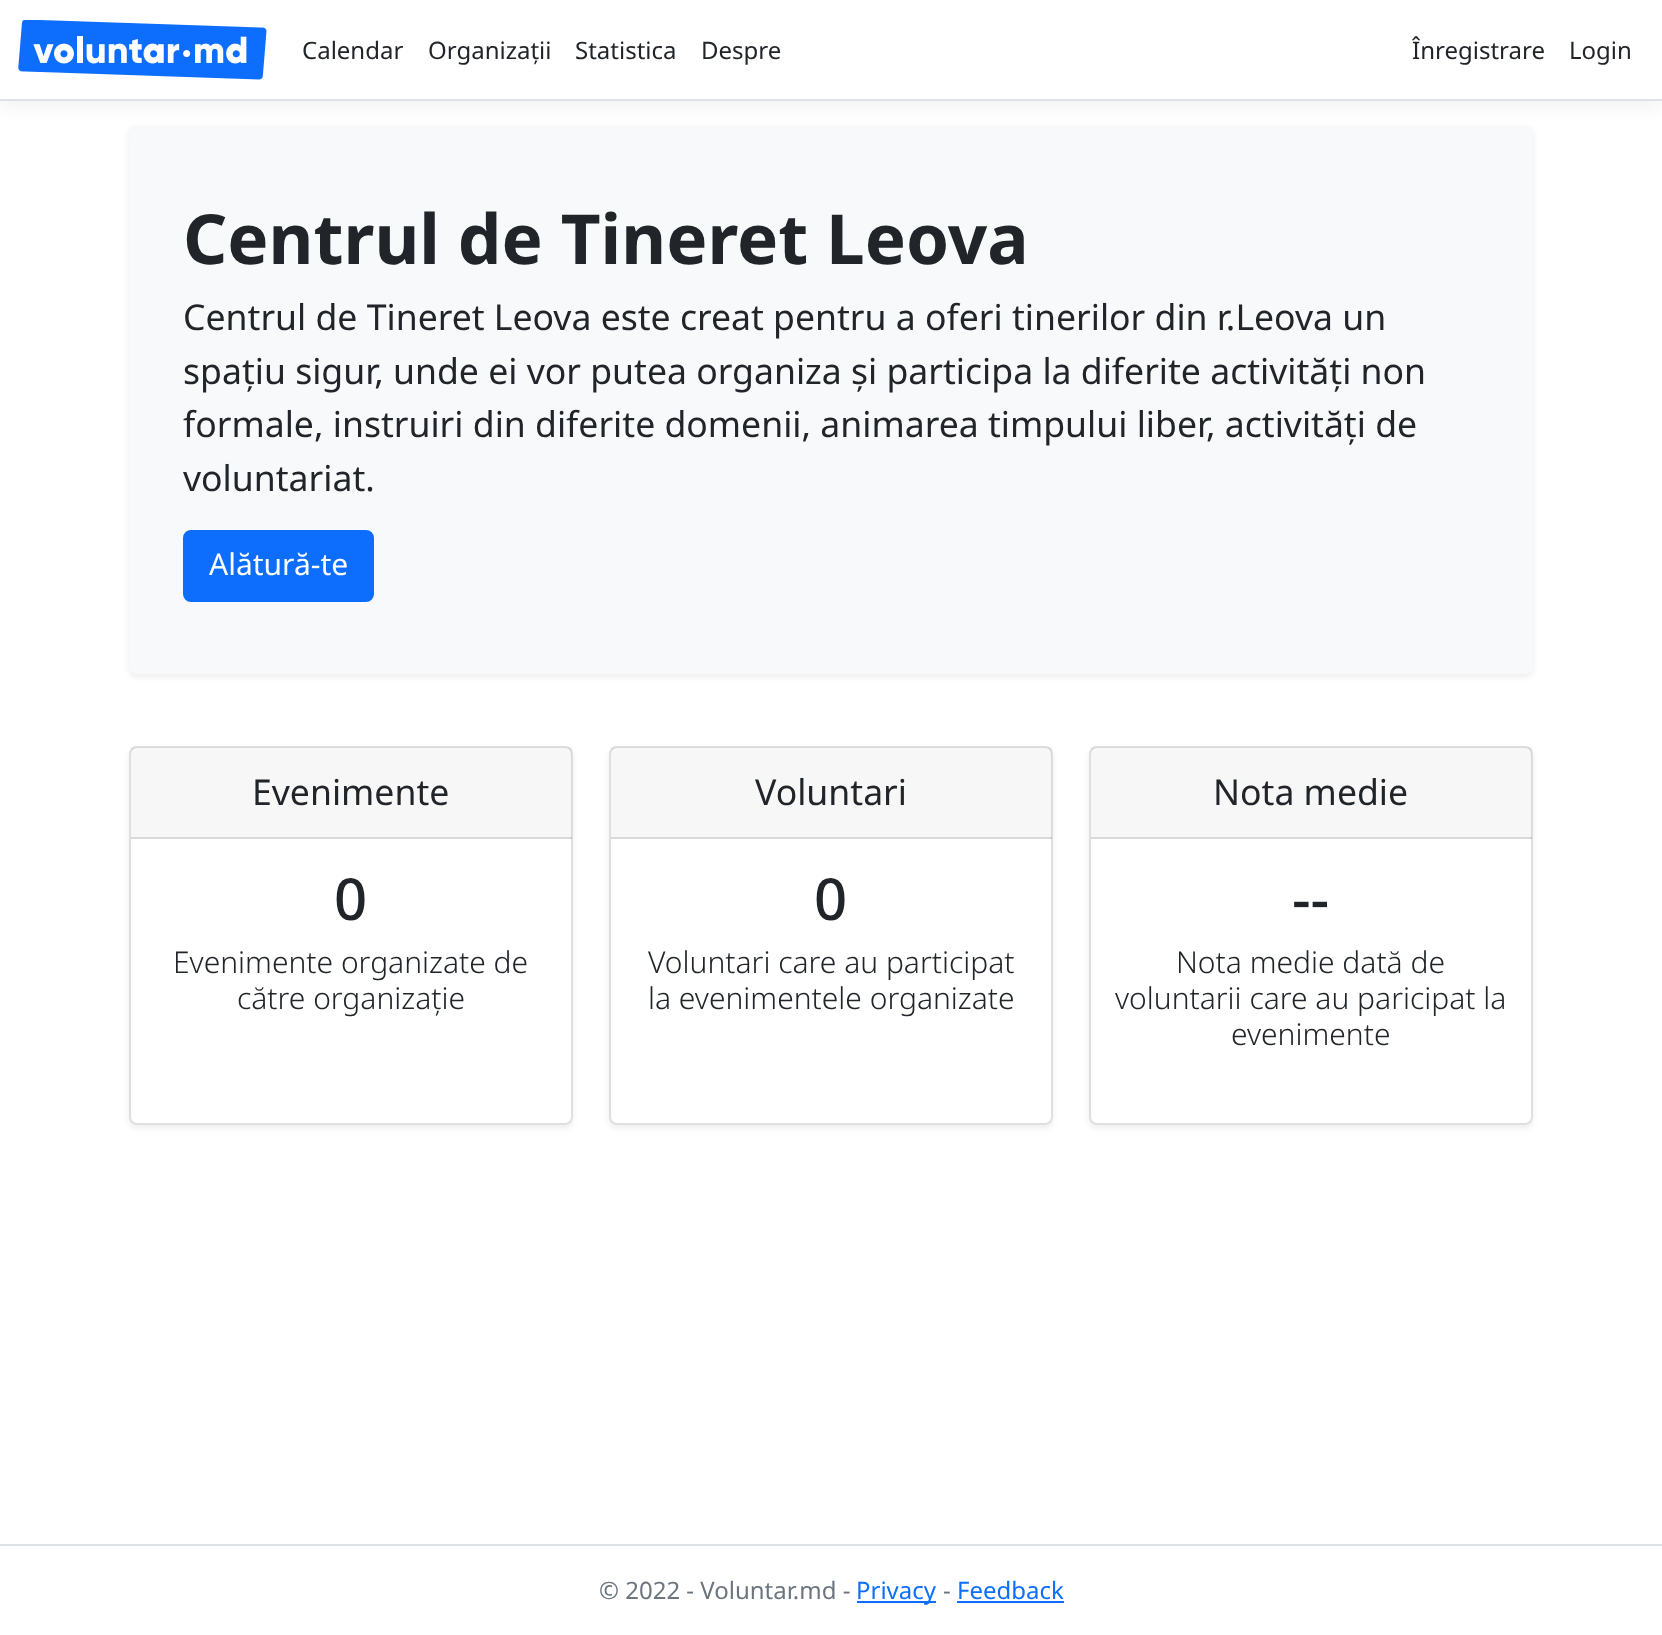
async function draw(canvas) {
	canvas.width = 1662;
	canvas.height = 1635;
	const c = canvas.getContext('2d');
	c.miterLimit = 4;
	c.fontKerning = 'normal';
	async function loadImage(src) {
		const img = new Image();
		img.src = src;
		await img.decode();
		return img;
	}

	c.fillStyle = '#fff';
	c.fillRect(0, 0, 1662, 1635);
	c.fillStyle = '#00000012';
	c.filter = 'blur(3px)';
	c.beginPath();
	c.roundRect(129, 128, 1404, 549, 8);
	c.fill();
	c.filter = 'none';
	c.fillStyle = '#f8f9fa';
	c.beginPath();
	c.roundRect(129, 125, 1404, 549, 8);
	c.fill();
	c.fillStyle = '#0000000d';
	c.filter = 'blur(9px)';
	c.beginPath();
	c.rect(0, 6, 1662, 101);
	c.fill();
	c.filter = 'none';
	c.fillStyle = '#fff';
	c.fillRect(0, 0, 1662, 99);
	c.fillStyle = '#dee2e6';
	c.fillRect(0, 99, 1662, 2);
	c.drawImage(await loadImage('img1.png'), 18, 20, 249, 60);
	c.font = '24px Noto Sans';
	c.fillStyle = '#212529';
	for (const [text, x, y] of [
		['Calendar', 302, 59],
		['Organizații', 428, 59],
		['Statistica', 575, 59],
		['Despre', 701, 59],
		['Înregistrare', 1412, 59],
		['Login', 1569, 59],
	]) {
		c.fillText(text, x, y);
	}
	c.font = 'bold 69.1px Noto Sans';
	c.fillText('Centrul de Tineret Leova', 183, 264);
	c.font = '35.6px Noto Sans';
	for (const [text, x, y] of [
		['Centrul de Tineret Leova este creat pentru a oferi tinerilor din r.Leova un', 183, 330],
		['spațiu sigur, unde ei vor putea organiza și participa la diferite activități non', 183, 384],
		['formale, instruiri din diferite domenii, animarea timpului liber, activități de', 183, 437],
		['voluntariat.', 183, 491],
	]) {
		c.fillText(text, x, y);
	}
	c.fillStyle = '#0d6efd';
	c.beginPath();
	c.roundRect(184, 531, 189, 70, 7);
	c.fill();
	c.strokeStyle = '#0d6efd';
	c.lineWidth = 2;
	c.stroke();
	c.font = '30px Noto Sans';
	c.fillStyle = '#fff';
	c.fillText('Alătură-te', 209, 575);
	c.fillStyle = '#00000012';
	c.filter = 'blur(3px)';
	c.beginPath();
	c.roundRect(129, 749, 444, 379, 8);
	c.fill();
	c.filter = 'none';
	c.fillStyle = '#fff';
	c.beginPath();
	c.roundRect(130, 747, 442, 377, 7);
	c.fill();
	c.strokeStyle = '#dfdfdf';
	c.stroke();
	c.fillStyle = '#00000008';
	c.fillRect(131, 747, 441, 92);
	c.fillStyle = '#0000001f';
	c.fillRect(131, 837, 441, 2);
	c.font = '35.6px Noto Sans';
	c.fillStyle = '#212529';
	c.fillText('Evenimente', 252, 805);
	c.font = '500 58px Noto Sans';
	c.fillText('0', 334, 920);
	c.font = '300 30px Noto Sans';
	c.fillText('Evenimente organizate de', 173, 973);
	c.fillText('către organizație', 237, 1009);
	c.fillStyle = '#00000012';
	c.filter = 'blur(3px)';
	c.beginPath();
	c.roundRect(609, 749, 444, 379, 8);
	c.fill();
	c.filter = 'none';
	c.fillStyle = '#fff';
	c.beginPath();
	c.roundRect(610, 747, 442, 377, 7);
	c.fill();
	c.stroke();
	c.fillStyle = '#00000008';
	c.fillRect(611, 747, 441, 92);
	c.fillStyle = '#0000001f';
	c.fillRect(611, 837, 441, 2);
	c.font = '35.6px Noto Sans';
	c.fillStyle = '#212529';
	c.fillText('Voluntari', 755, 805);
	c.font = '500 58px Noto Sans';
	c.fillText('0', 814, 920);
	c.font = '300 30px Noto Sans';
	c.fillText('Voluntari care au participat', 648, 973);
	c.fillText('la evenimentele organizate', 648, 1009);
	c.fillStyle = '#00000012';
	c.filter = 'blur(3px)';
	c.beginPath();
	c.roundRect(1089, 749, 444, 379, 8);
	c.fill();
	c.filter = 'none';
	c.fillStyle = '#fff';
	c.beginPath();
	c.roundRect(1090, 747, 442, 377, 7);
	c.fill();
	c.stroke();
	c.fillStyle = '#00000008';
	c.fillRect(1091, 747, 441, 92);
	c.fillStyle = '#0000001f';
	c.fillRect(1091, 837, 441, 2);
	c.font = '35.6px Noto Sans';
	c.fillStyle = '#212529';
	c.fillText('Nota medie', 1213, 805);
	c.font = '500 58px Noto Sans';
	c.fillText('--', 1292, 920);
	c.font = '300 30px Noto Sans';
	for (const [text, x, y] of [
		['Nota medie dată de', 1176, 973],
		['voluntarii care au paricipat la', 1115, 1009],
		['evenimente', 1231, 1045],
	]) {
		c.fillText(text, x, y);
	}
	c.fillStyle = '#dee2e6';
	c.fillRect(0, 1544, 1662, 2);
	c.font = '24px Noto Sans';
	c.fillStyle = '#6c757d';
	c.fillText('© 2022 - Voluntar.md -', 599, 1599);
	c.fillStyle = '#0d6efd';
	c.fillRect(857, 1601, 79, 2);
	c.fillText('Privacy', 856, 1599);
	c.fillStyle = '#6c757d';
	c.fillText('-', 943, 1599);
	c.fillStyle = '#0d6efd';
	c.fillText('Feedback', 957, 1599);
	c.fillRect(957, 1601, 107, 2);
}

draw(document.querySelector('canvas'));
